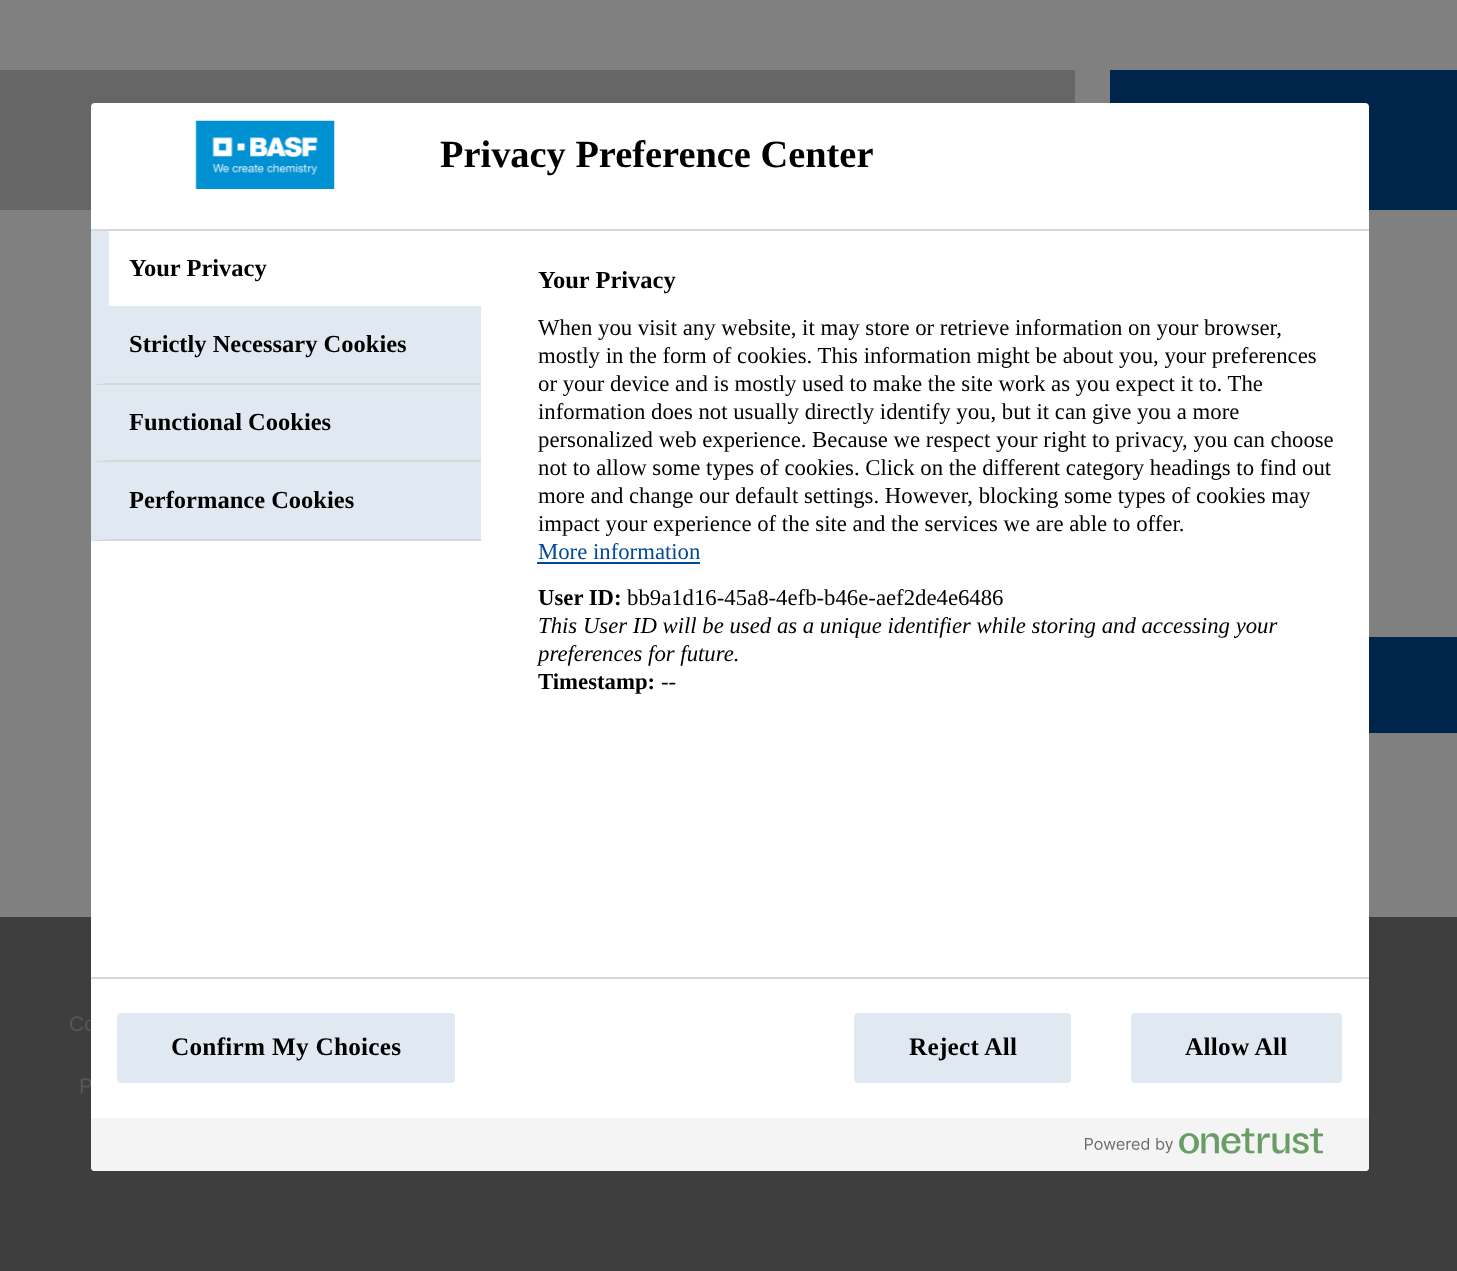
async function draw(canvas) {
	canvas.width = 1457;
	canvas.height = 1271;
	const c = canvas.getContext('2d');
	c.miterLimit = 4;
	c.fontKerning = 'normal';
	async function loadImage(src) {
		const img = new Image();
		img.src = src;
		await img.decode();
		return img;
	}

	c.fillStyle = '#808080';
	c.fillRect(0, 0, 1457, 1271);
	for (const [x, y, w, h, color] of [
		[0, 70, 1075, 140, '#666'],
		[1110, 70, 347, 140, '#00254b'],
		[1369, 637, 88, 96, '#00254b'],
		[0, 917, 1457, 354, '#3e3e3e'],
	]) {
		c.fillStyle = color;
		c.fillRect(x, y, w, h);
	}
	c.font = '21px Liberation Sans';
	c.fillStyle = '#575757';
	c.fillText('Co', 69, 1031);
	c.fillText('P', 79, 1093);
	c.fillStyle = '#fff';
	c.beginPath();
	c.roundRect(91, 103, 1278, 1068, 4);
	c.fill();
	c.fillStyle = '#d8d8d8';
	c.fillRect(91, 229, 1278, 2);
	c.drawImage(await loadImage('img1.png'), 195, 120, 140, 69);
	c.font = 'bold 38.4px Liberation Serif';
	c.fillStyle = '#000';
	c.fillText('Privacy Preference Center', 440, 167);
	c.fillStyle = '#e0e9f2';
	c.fillRect(91, 231, 18, 75);
	c.font = 'bold 24.5px Liberation Serif';
	c.fillStyle = '#000';
	c.fillText('Your Privacy', 129, 276);
	c.fillStyle = '#e0e9f2';
	c.fillRect(91, 306, 390, 235);
	c.fillStyle = '#d7d7d7';
	c.beginPath();
	c.moveTo(481, 385);
	c.lineTo(91, 385);
	c.lineTo(108, 383);
	c.lineTo(481, 383);
	c.closePath();
	c.fill();
	c.fillStyle = '#000';
	c.fillText('Strictly Necessary Cookies', 129, 352);
	c.fillStyle = '#d7d7d7';
	c.beginPath();
	c.moveTo(481, 462);
	c.lineTo(91, 462);
	c.lineTo(108, 460);
	c.lineTo(481, 460);
	c.closePath();
	c.fill();
	c.fillStyle = '#000';
	c.fillText('Functional Cookies', 129, 430);
	c.fillStyle = '#d7d7d7';
	c.beginPath();
	c.moveTo(481, 541);
	c.lineTo(91, 541);
	c.lineTo(108, 539);
	c.lineTo(481, 539);
	c.closePath();
	c.fill();
	c.fillStyle = '#000';
	c.fillText('Performance Cookies', 129, 508);
	c.fillText('Your Privacy', 538, 288);
	c.font = '22.75px Liberation Serif';
	for (const [text, x, y] of [
		['When you visit any website, it may store or retrieve information on your browser,', 538, 335],
		['mostly in the form of cookies. This information might be about you, your preferences', 538, 363],
		['or your device and is mostly used to make the site work as you expect it to. The', 538, 391],
		['information does not usually directly identify you, but it can give you a more', 538, 419],
		['personalized web experience. Because we respect your right to privacy, you can choose', 538, 447],
		['not to allow some types of cookies. Click on the different category headings to find out', 538, 475],
		['more and change our default settings. However, blocking some types of cookies may', 538, 503],
		['impact your experience of the site and the services we are able to offer.', 538, 531],
	]) {
		c.fillText(text, x, y);
	}
	c.fillStyle = '#004a96';
	c.fillText('More information', 538, 559);
	c.fillRect(537, 562, 163, 2);
	c.font = 'bold 22.75px Liberation Serif';
	c.fillStyle = '#000';
	c.fillText('User ID:', 538, 605);
	c.font = '22.75px Liberation Serif';
	c.fillText('bb9a1d16-45a8-4efb-b46e-aef2de4e6486', 627, 605);
	c.font = 'italic 22.75px Liberation Serif';
	c.fillText('This User ID will be used as a unique identifier while storing and accessing your', 538, 633);
	c.fillText('preferences for future.', 538, 661);
	c.font = 'bold 22.75px Liberation Serif';
	c.fillText('Timestamp:', 538, 689);
	c.font = '22.75px Liberation Serif';
	c.fillText('--', 661, 689);
	c.fillStyle = '#d8d8d8';
	c.fillRect(91, 977, 1278, 2);
	c.fillStyle = '#e0e9f2';
	c.beginPath();
	c.roundRect(118, 1014, 336, 68, 3);
	c.fill();
	c.strokeStyle = '#e0e9f2';
	c.lineWidth = 2;
	c.stroke();
	c.letterSpacing = '0.25px';
	c.font = 'bold 25.25px Liberation Serif';
	c.fillStyle = '#000';
	c.fillText('Confirm My Choices', 171, 1055);
	c.fillStyle = '#e0e9f2';
	c.beginPath();
	c.roundRect(855, 1014, 215, 68, 3);
	c.fill();
	c.stroke();
	c.fillStyle = '#000';
	c.fillText('Reject All', 909, 1055);
	c.fillStyle = '#e0e9f2';
	c.beginPath();
	c.roundRect(1132, 1014, 209, 68, 3);
	c.fill();
	c.stroke();
	c.fillStyle = '#000';
	c.fillText('Allow All', 1185, 1055);
	c.fillStyle = '#f4f4f4';
	c.beginPath();
	c.roundRect(91, 1118, 1278, 53, [0, 0, 4, 4]);
	c.fill();
	c.drawImage(await loadImage('img2.png'), 1085, 1128, 238, 26);
}

draw(document.querySelector('canvas'));
